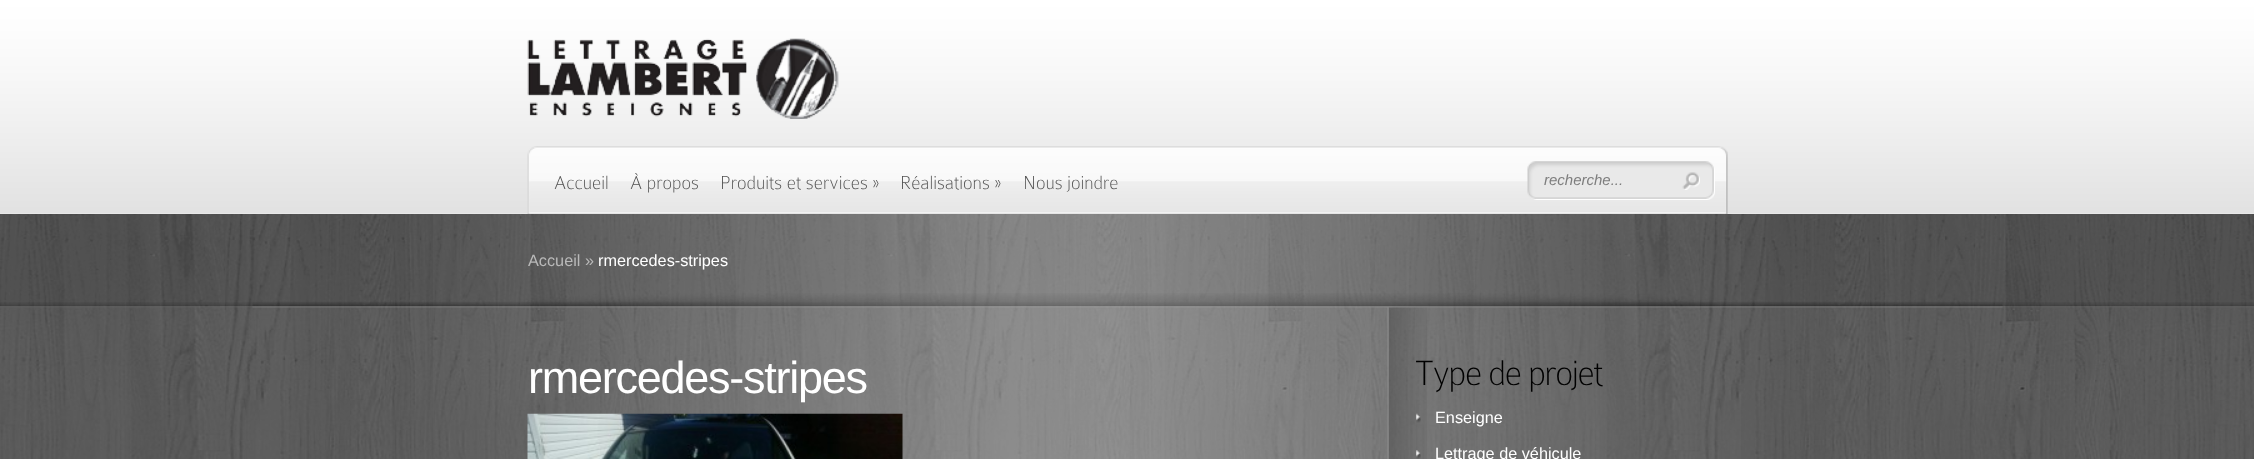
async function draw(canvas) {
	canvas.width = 2254;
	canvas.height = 459;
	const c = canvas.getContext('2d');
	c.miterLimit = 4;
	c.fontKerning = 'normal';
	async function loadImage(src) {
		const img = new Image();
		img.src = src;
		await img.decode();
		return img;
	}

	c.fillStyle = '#fff';
	c.fillRect(0, 0, 2254, 459);
	c.drawImage(await loadImage('img1.png'), 0, 214, 2254, 245);
	c.drawImage(await loadImage('img2.png'), 0, 0, 2254, 213);
	c.drawImage(await loadImage('img3.png'), 527, 38, 312, 81);
	c.drawImage(await loadImage('img4.png'), 527, 146, 1201, 68);
	c.font = '100 20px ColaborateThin';
	c.fillStyle = '#535353';
	for (const [text, x, y] of [
		['Accueil', 554, 189],
		['À propos', 630, 189],
		['Produits et services »', 720, 189],
		['Réalisations »', 900, 189],
		['Nous joindre', 1023, 189],
	]) {
		c.fillText(text, x, y);
	}
	c.drawImage(await loadImage('img5.png'), 1527, 161, 188, 39);
	c.font = 'italic 15px Liberation Sans';
	c.fillStyle = '#7d7d7d';
	c.fillText('recherche...', 1544, 185);
	c.drawImage(await loadImage('img6.png'), 1682, 172, 18, 18);
	c.drawImage(await loadImage('img7.png'), 0, 302, 2254, 6);
	c.drawImage(await loadImage('img8.png'), 252, 293, 1751, 15);
	c.fillStyle = '#00000017';
	c.fillRect(0, 213, 2254, 95);
	c.drawImage(await loadImage('img9.png'), 433, 214, 1308, 94);
	c.font = '16.25px Liberation Sans';
	c.fillStyle = '#b9b9b9';
	c.fillText('Accueil »', 528, 266);
	c.fillStyle = '#fff';
	c.fillText('rmercedes-stripes', 598, 266);
	c.drawImage(await loadImage('img10.png'), 433, 307, 1308, 152);
	c.drawImage(await loadImage('img11.png'), 1387, 307, 40, 152);
	c.letterSpacing = '-1.25px';
	c.font = '45px Liberation Sans';
	c.fillText('rmercedes-stripes', 528, 393);
	c.drawImage(await loadImage('img12.png'), 527, 413, 376, 46);
	c.font = '100 37.5px ColaborateThin';
	c.fillStyle = '#000';
	c.fillText('Type de projet', 1415, 385);
	c.drawImage(await loadImage('img13.png'), 1416, 413, 5, 10);
	c.letterSpacing = '0px';
	c.font = '16.25px Liberation Sans';
	c.fillStyle = '#fff';
	c.fillText('Enseigne', 1435, 423);
	c.drawImage(await loadImage('img14.png'), 1416, 450, 5, 9);
	c.fillText('Lettrage de véhicule', 1435, 459);
}

draw(document.querySelector('canvas'));
